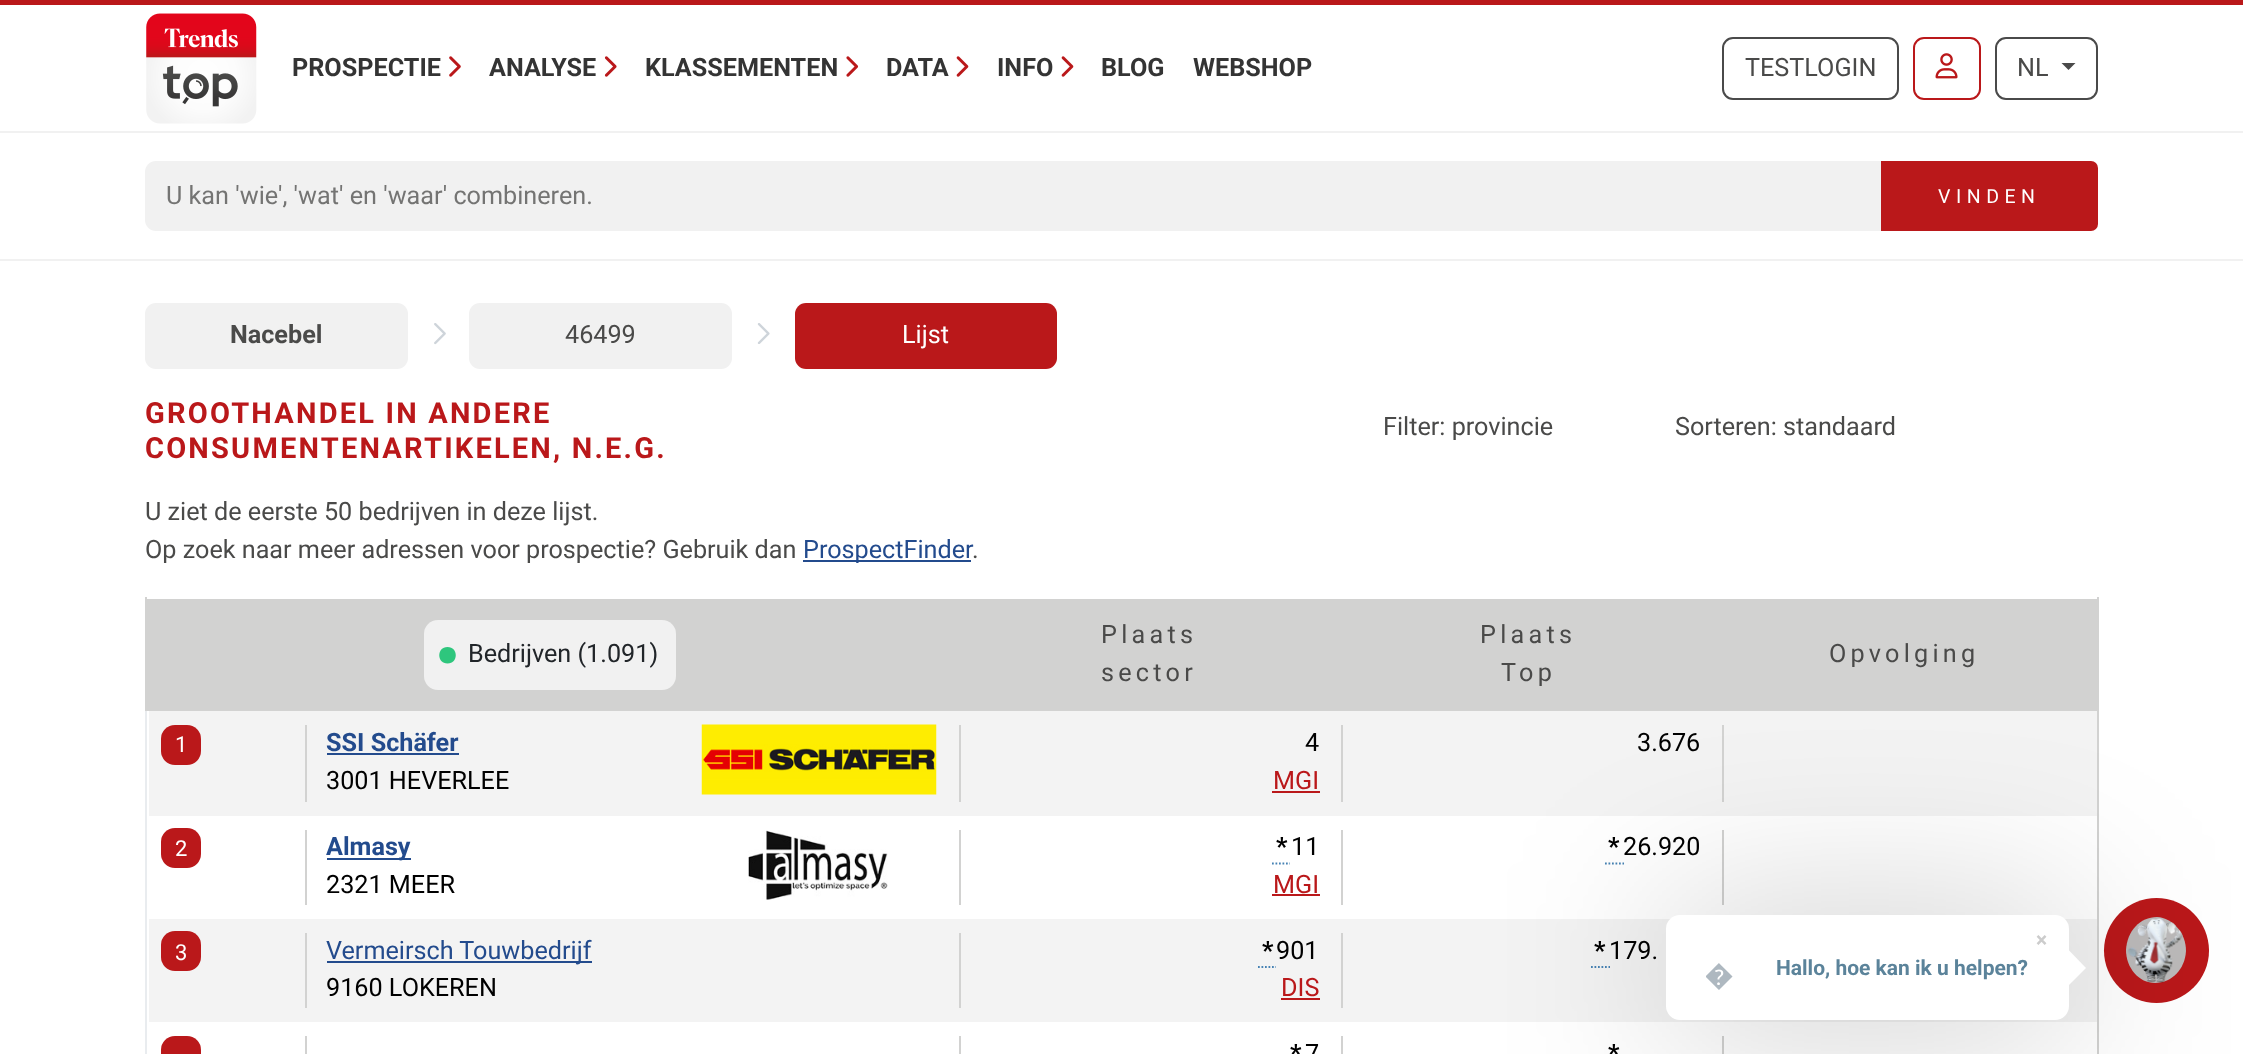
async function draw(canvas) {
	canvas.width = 2243;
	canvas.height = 1054;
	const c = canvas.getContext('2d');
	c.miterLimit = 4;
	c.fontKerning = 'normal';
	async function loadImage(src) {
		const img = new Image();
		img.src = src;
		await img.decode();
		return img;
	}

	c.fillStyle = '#fff';
	c.fillRect(0, 0, 2243, 1054);
	c.fillStyle = '#ba181a';
	c.fillRect(0, 0, 2243, 5);
	c.fillStyle = '#f1f1f1';
	c.fillRect(0, 259, 2243, 2);
	c.drawImage(await loadImage('img1.png'), 146, 13, 111, 111);
	c.font = 'bold 25.2px Roboto';
	c.fillStyle = '#343434';
	c.fillText('PROSPECTIE', 292, 76);
	c.drawImage(await loadImage('img2.png'), 449, 56, 12, 21);
	c.fillText('ANALYSE', 489, 76);
	c.drawImage(await loadImage('img3.png'), 604, 56, 13, 21);
	c.fillText('KLASSEMENTEN', 645, 76);
	c.drawImage(await loadImage('img4.png'), 846, 56, 13, 21);
	c.fillText('DATA', 886, 76);
	c.drawImage(await loadImage('img5.png'), 956, 56, 13, 21);
	c.fillText('INFO', 997, 76);
	c.drawImage(await loadImage('img5.png'), 1061, 56, 13, 21);
	c.fillText('BLOG', 1101, 76);
	c.fillText('WEBSHOP', 1193, 76);
	c.beginPath();
	c.roundRect(1723, 38, 175, 61, 10);
	c.strokeStyle = '#4a4a4a';
	c.lineWidth = 2;
	c.stroke();
	c.font = '25.2px Roboto';
	c.fillStyle = '#4a4a49';
	c.fillText('TESTLOGIN', 1745, 76);
	c.beginPath();
	c.roundRect(1914, 38, 66, 61, 10);
	c.strokeStyle = '#ba181a';
	c.stroke();
	c.drawImage(await loadImage('img6.png'), 1935, 53, 23, 26);
	c.beginPath();
	c.roundRect(1996, 38, 101, 61, 10);
	c.strokeStyle = '#4a4a4a';
	c.stroke();
	c.fillText('NL', 2017, 76);
	c.fillStyle = '#4a4a4a';
	c.beginPath();
	c.moveTo(2061.5, 63);
	c.lineTo(2075.5, 63);
	c.lineTo(2068.5, 70);
	c.closePath();
	c.fill();
	c.fillStyle = '#f1f1f1';
	c.fillRect(0, 131, 2243, 2);
	c.beginPath();
	c.roundRect(145, 161, 1738, 70, [11, 0, 0, 11]);
	c.fill();
	c.fillStyle = '#747473';
	c.fillText('U kan \'wie\', \'wat\' en \'waar\' combineren.', 166, 204);
	c.fillStyle = '#ba181a';
	c.beginPath();
	c.roundRect(1881, 161, 217, 70, [0, 7, 7, 0]);
	c.fill();
	c.letterSpacing = '5.5px';
	c.font = '19.5px Roboto';
	c.fillStyle = '#fff';
	c.fillText('VINDEN', 1938, 203);
	c.fillStyle = '#f1f1f1';
	c.beginPath();
	c.roundRect(145, 303, 263, 66, 11);
	c.fill();
	c.letterSpacing = '0px';
	c.font = 'bold 25.2px Roboto';
	c.fillStyle = '#4a4a49';
	c.fillText('Nacebel', 230, 343);
	c.drawImage(await loadImage('img7.png'), 434, 323, 12, 22);
	c.fillStyle = '#f1f1f1';
	c.beginPath();
	c.roundRect(469, 303, 263, 66, 11);
	c.fill();
	c.font = '25.2px Roboto';
	c.fillStyle = '#4a4a49';
	c.fillText('46499', 565, 343);
	c.drawImage(await loadImage('img8.png'), 757, 323, 13, 21);
	c.fillStyle = '#ba181a';
	c.beginPath();
	c.roundRect(795, 303, 262, 66, 11);
	c.fill();
	c.fillStyle = '#fff';
	c.fillText('Lijst', 902, 343);
	c.letterSpacing = '2.2px';
	c.font = 'bold 29px Roboto';
	c.fillStyle = '#ba181a';
	c.fillText('GROOTHANDEL IN ANDERE', 145, 423);
	c.fillText('CONSUMENTENARTIKELEN, N.E.G.', 145, 458);
	c.letterSpacing = '0px';
	c.font = '25.2px Roboto';
	c.fillStyle = '#4a4a49';
	for (const [text, x, y] of [
		['Filter: provincie', 1383, 435],
		['Sorteren: standaard', 1675, 435],
		['U ziet de eerste 50 bedrijven in deze lijst.', 145, 520],
		['Op zoek naar meer adressen voor prospectie? Gebruik dan', 145, 558],
	]) {
		c.fillText(text, x, y);
	}
	c.fillStyle = '#234b8d';
	c.fillRect(803, 560, 168, 2);
	c.fillText('ProspectFinder', 803, 558);
	c.fillStyle = '#4a4a49';
	c.fillText('.', 972, 558);
	c.fillStyle = '#d2d2d1';
	c.fillRect(145, 597, 2, 115);
	c.fillRect(147, 599, 1950, 112);
	c.fillStyle = '#f1f1f1';
	c.beginPath();
	c.roundRect(424, 620, 252, 70, 14);
	c.fill();
	c.fillStyle = '#2ec67d';
	c.beginPath();
	c.moveTo(447.5, 663.5);
	c.bezierCurveTo(458.5, 663.5, 458.5, 647, 447.5, 647);
	c.bezierCurveTo(436.5, 647, 436.5, 663.5, 447.5, 663.5);
	c.closePath();
	c.fill();
	c.fillStyle = '#212529';
	c.fillText('Bedrijven (1.091)', 468, 662);
	c.letterSpacing = '4.25px';
	c.fillStyle = '#4a4a49';
	for (const [text, x, y] of [
		['Plaats', 1101, 643],
		['sector', 1101, 681],
		['Plaats', 1480, 643],
		['Top', 1501, 681],
		['Opvolging', 1829, 662],
	]) {
		c.fillText(text, x, y);
	}
	c.fillStyle = '#f3f3f3';
	c.fillRect(149, 711, 1948, 105);
	c.fillStyle = '#ba181a';
	c.beginPath();
	c.roundRect(161, 725, 40, 40, 14);
	c.fill();
	c.letterSpacing = '0px';
	c.font = '22px Roboto';
	c.fillStyle = '#fff';
	c.fillText('1', 175, 752);
	c.fillStyle = '#d2d2d1';
	c.fillRect(305, 725, 2, 77);
	c.font = 'bold 25.2px Roboto';
	c.fillStyle = '#234b8d';
	c.fillText('SSI Schäfer', 326, 751);
	c.fillRect(327, 753, 132, 2);
	c.drawImage(await loadImage('img9.png'), 701, 724, 236, 71);
	c.font = '25.2px Roboto';
	c.fillStyle = '#000';
	c.fillText('3001 HEVERLEE', 326, 789);
	c.fillStyle = '#d2d2d1';
	c.fillRect(959, 725, 2, 77);
	c.fillStyle = '#000';
	c.fillText('4', 1305, 751);
	c.fillStyle = '#ba181a';
	c.fillText('MGI', 1273, 789);
	c.fillRect(1272, 791, 48, 2);
	c.fillStyle = '#d2d2d1';
	c.fillRect(1341, 725, 2, 77);
	c.fillStyle = '#000';
	c.fillText('3.676', 1637, 751);
	c.fillStyle = '#d2d2d1';
	c.fillRect(1722, 725, 2, 77);
	c.fillStyle = '#ba181a';
	c.beginPath();
	c.roundRect(161, 828, 40, 40, 14);
	c.fill();
	c.font = '22px Roboto';
	c.fillStyle = '#fff';
	c.fillText('2', 175, 856);
	c.fillStyle = '#d2d2d1';
	c.fillRect(305, 830, 2, 75);
	c.fillStyle = '#234b8d';
	c.fillRect(327, 858, 84, 2);
	c.font = 'bold 25.2px Roboto';
	c.fillText('Almasy', 326, 855);
	c.drawImage(await loadImage('img10.png'), 748, 830, 140, 70);
	c.font = '25.2px Roboto';
	c.fillStyle = '#000';
	c.fillText('2321 MEER', 326, 893);
	c.fillStyle = '#d2d2d1';
	c.fillRect(959, 830, 2, 75);
	c.font = 'bold 25.2px Roboto';
	c.fillStyle = '#000';
	c.fillText('*', 1276, 855);
	c.beginPath();
	c.moveTo(1272, 863.5);
	c.lineTo(1290, 863.5);
	c.strokeStyle = '#4682b4';
	c.lineWidth = 1.8;
	c.setLineDash([1.75, 1.75]);
	c.stroke();
	c.font = '25.2px Roboto';
	c.fillText('11', 1291, 855);
	c.fillStyle = '#ba181a';
	c.fillText('MGI', 1273, 893);
	c.fillRect(1272, 894, 48, 2);
	c.fillStyle = '#d2d2d1';
	c.fillRect(1341, 830, 2, 75);
	c.font = 'bold 25.2px Roboto';
	c.fillStyle = '#000';
	c.fillText('*', 1608, 855);
	c.beginPath();
	c.moveTo(1605, 863.5);
	c.lineTo(1624, 863.5);
	c.stroke();
	c.font = '25.2px Roboto';
	c.fillText('26.920', 1623, 855);
	c.fillStyle = '#d2d2d1';
	c.fillRect(1722, 830, 2, 75);
	c.fillStyle = '#f3f3f3';
	c.fillRect(149, 919, 1948, 103);
	c.fillStyle = '#ba181a';
	c.beginPath();
	c.roundRect(161, 931, 40, 40, 14);
	c.fill();
	c.font = '22px Roboto';
	c.fillStyle = '#fff';
	c.fillText('3', 175, 960);
	c.fillStyle = '#d2d2d1';
	c.fillRect(305, 933, 2, 75);
	c.fillStyle = '#234b8d';
	c.fillRect(327, 961, 265, 2);
	c.font = '25.2px Roboto';
	c.fillText('Vermeirsch Touwbedrijf', 326, 959);
	c.fillStyle = '#000';
	c.fillText('9160 LOKEREN', 326, 996);
	c.fillStyle = '#d2d2d1';
	c.fillRect(959, 933, 2, 75);
	c.font = 'bold 25.2px Roboto';
	c.fillStyle = '#000';
	c.fillText('*', 1262, 959);
	c.beginPath();
	c.moveTo(1258, 967);
	c.lineTo(1276, 967);
	c.stroke();
	c.font = '25.2px Roboto';
	c.fillText('901', 1276, 959);
	c.fillStyle = '#ba181a';
	c.fillText('DIS', 1281, 996);
	c.fillRect(1281, 998, 39, 2);
	c.fillStyle = '#d2d2d1';
	c.fillRect(1341, 933, 2, 75);
	c.font = 'bold 25.2px Roboto';
	c.fillStyle = '#000';
	c.fillText('*', 1594, 959);
	c.beginPath();
	c.moveTo(1591, 967);
	c.lineTo(1610, 967);
	c.stroke();
	c.font = '25.2px Roboto';
	c.fillText('179.', 1609, 959);
	c.fillStyle = '#d2d2d1';
	c.fillRect(2097, 597, 2, 457);
	c.fillStyle = '#e9ecef';
	c.fillRect(145, 711, 2, 343);
	c.fillStyle = '#ba181a';
	c.beginPath();
	c.roundRect(161, 1036, 40, 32, 14);
	c.fill();
	c.fillStyle = '#d2d2d1';
	c.fillRect(305, 1036, 2, 18);
	c.fillRect(959, 1036, 2, 18);
	c.font = 'bold 25.2px Roboto';
	c.fillStyle = '#000';
	c.fillText('*', 1290, 1062);
	c.font = '25.2px Roboto';
	c.fillText('7', 1305, 1062);
	c.fillStyle = '#d2d2d1';
	c.fillRect(1341, 1036, 2, 18);
	c.font = 'bold 25.2px Roboto';
	c.fillStyle = '#000';
	c.fillText('*', 1608, 1062);
	c.fillStyle = '#d2d2d1';
	c.fillRect(1722, 1036, 2, 18);
	c.fillStyle = '#ba181a';
	c.beginPath();
	c.arc(2156.5, 950.5, 52.5, 0, 2 * Math.PI);
	c.fill();
	c.fillStyle = '#bcbaba';
	c.beginPath();
	c.moveTo(2157, 917);
	c.bezierCurveTo(2173, 918, 2186, 933, 2186, 951);
	c.bezierCurveTo(2185, 969, 2172, 983, 2155, 983);
	c.bezierCurveTo(2139, 983, 2126, 968, 2126, 950);
	c.bezierCurveTo(2127, 931, 2140, 917, 2157, 917);
	c.closePath();
	c.fill();
	c.drawImage(await loadImage('img11.png'), 2127, 918, 56, 65);
	c.fillStyle = '#00000038';
	c.filter = 'blur(87.5px)';
	c.beginPath();
	c.roundRect(1664, 914, 410, 112, 18);
	c.fill();
	c.filter = 'none';
	c.fillStyle = '#fff';
	c.beginPath();
	c.roundRect(1666, 915, 403, 105, 14);
	c.fill();
	c.font = 'bold 21px Roboto';
	c.fillStyle = '#ccc';
	c.fillText('×', 2036, 947);
	c.save();
	c.beginPath();
	c.rect(1706, 924, 70, 88);
	c.clip();
	c.font = 'bold 28px Noto Color Emoji';
	c.fillStyle = '#aeb8c0';
	c.fillText('�', 1705, 985);
	c.restore();
	c.fillStyle = '#5b839a';
	c.fillText('Hallo, hoe kan ik u helpen?', 1776, 975);
	c.fillStyle = '#fff';
	c.beginPath();
	c.moveTo(2060, 994);
	c.lineTo(2060, 941);
	c.lineTo(2086, 968);
	c.closePath();
	c.fill();
}

draw(document.querySelector('canvas'));
